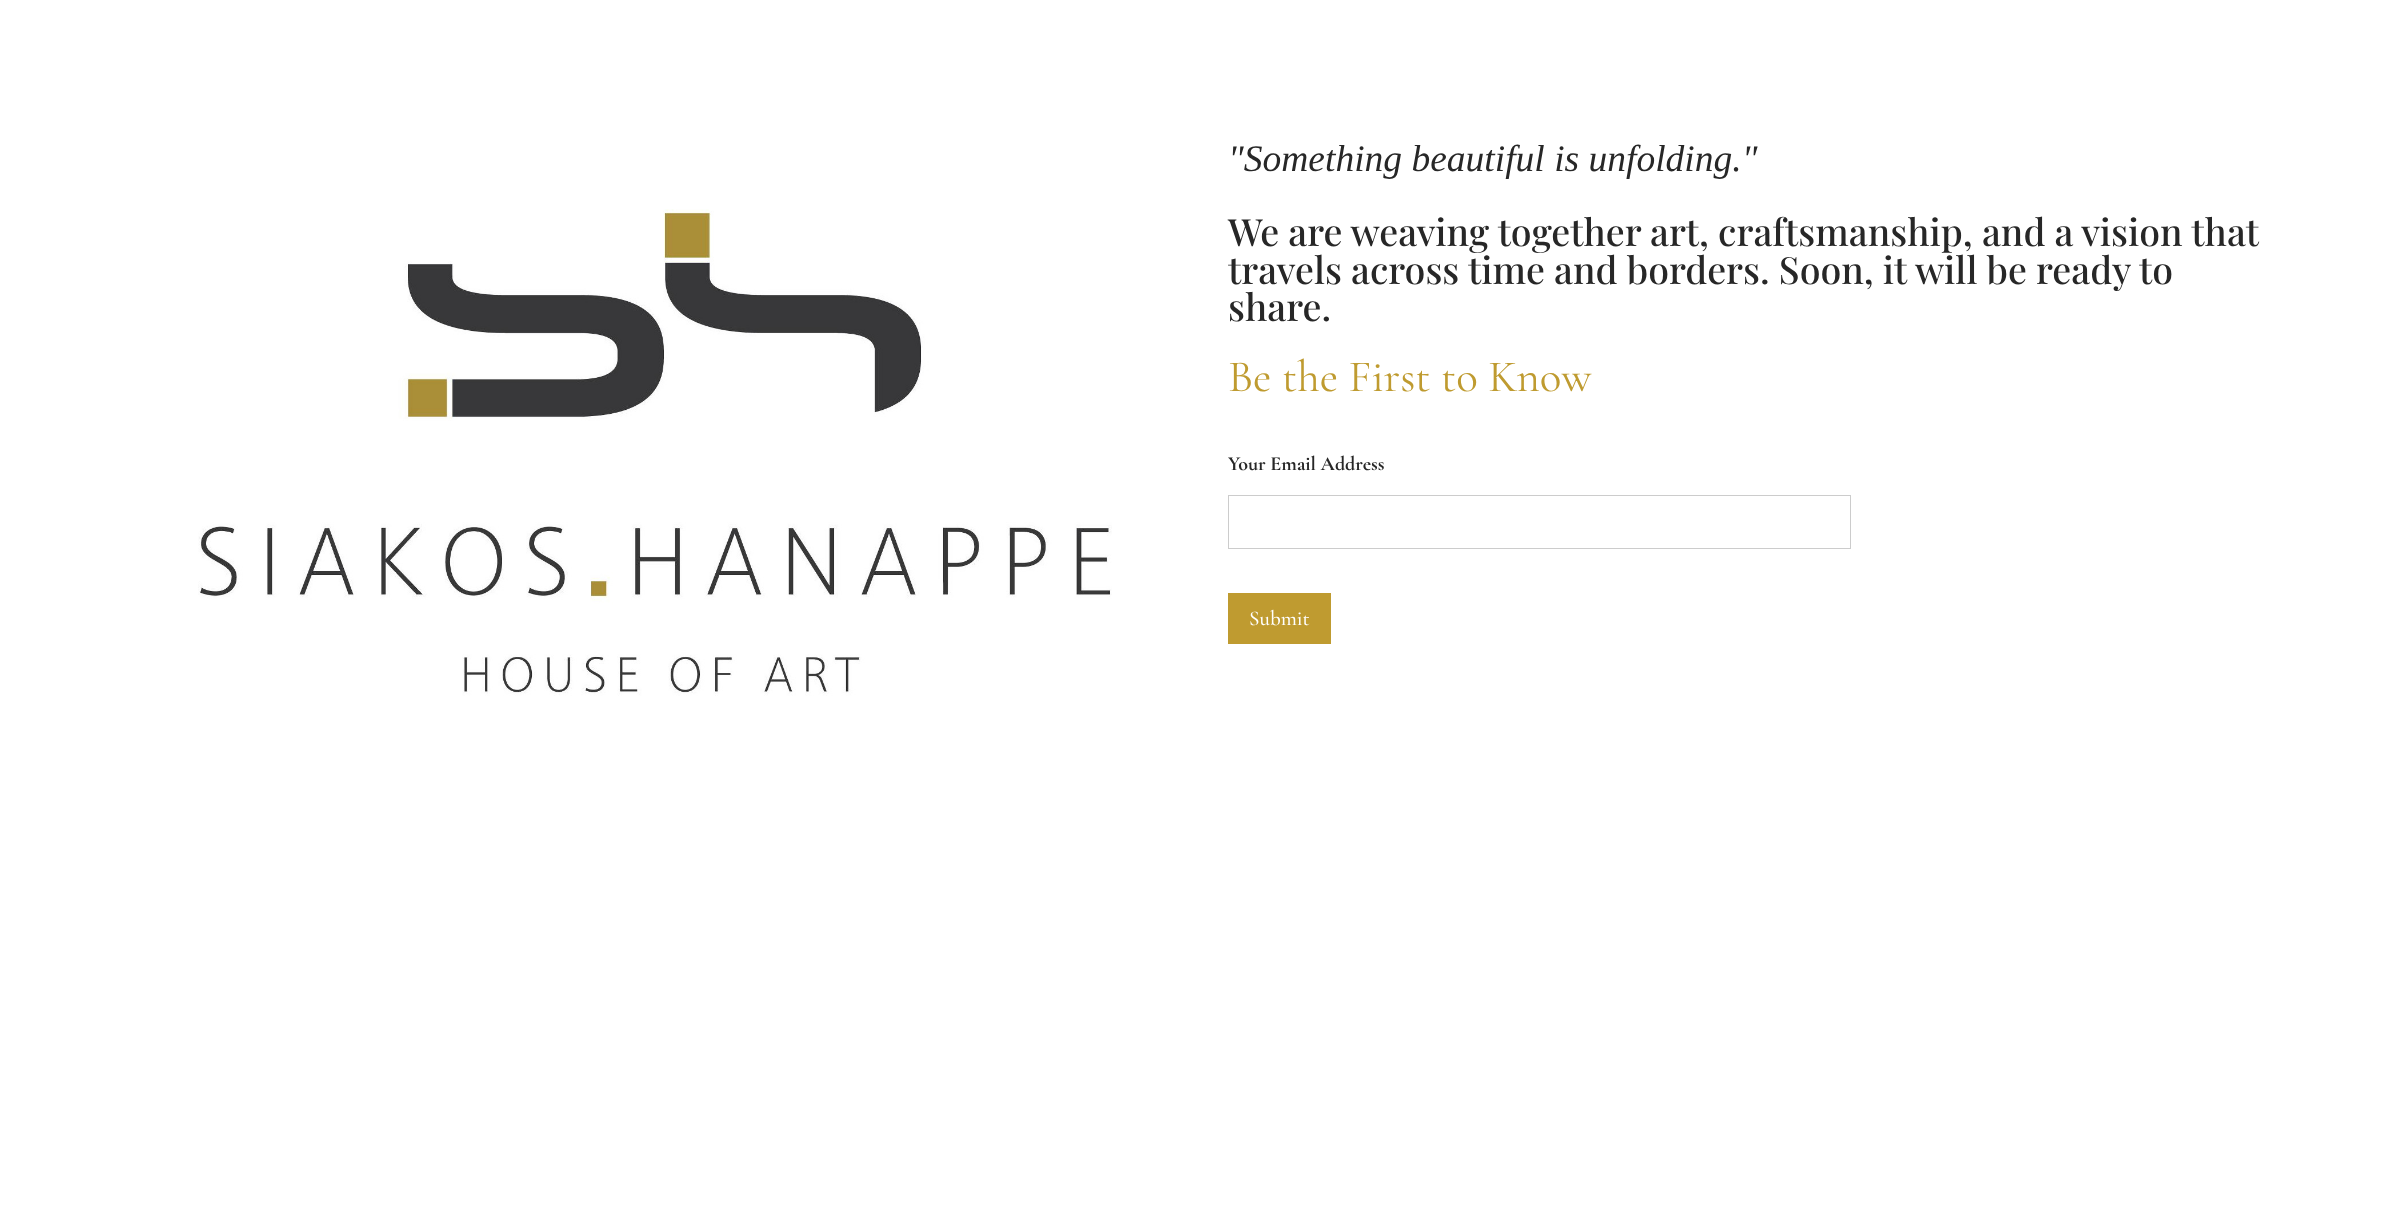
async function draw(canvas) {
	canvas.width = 2404;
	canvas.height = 1218;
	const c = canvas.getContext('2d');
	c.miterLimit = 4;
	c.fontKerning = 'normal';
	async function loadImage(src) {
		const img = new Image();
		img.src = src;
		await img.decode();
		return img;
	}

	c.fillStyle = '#fff';
	c.fillRect(0, 0, 2404, 1218);
	c.drawImage(await loadImage('img1.png'), 198, 209, 914, 487);
	c.font = 'italic 37.5px Liberation Serif';
	c.fillStyle = '#272727';
	c.fillText('"Something beautiful is unfolding."', 1228, 171);
	c.font = '500 37.5px Playfair Display';
	for (const [text, x, y] of [
		['We are weaving together art, craftsmanship, and a vision that', 1228, 246],
		['travels across time and borders. Soon, it will be ready to', 1228, 284],
		['share.', 1228, 321],
	]) {
		c.fillText(text, x, y);
	}
	c.font = '45px Cormorant Garamond';
	c.fillStyle = '#bf9b30';
	c.fillText('Be the First to Know', 1228, 391);
	c.font = 'bold 20px Cormorant Garamond';
	c.fillStyle = '#272727';
	c.fillText('Your Email Address', 1228, 470);
	c.strokeStyle = '#ccc';
	c.strokeRect(1228.5, 495.5, 622, 53);
	c.fillStyle = '#bf9b30';
	c.fillRect(1228, 593, 103, 51);
	c.font = '500 21px Cormorant Garamond';
	c.fillStyle = '#fff';
	c.fillText('Submit', 1249, 625);
}

draw(document.querySelector('canvas'));
